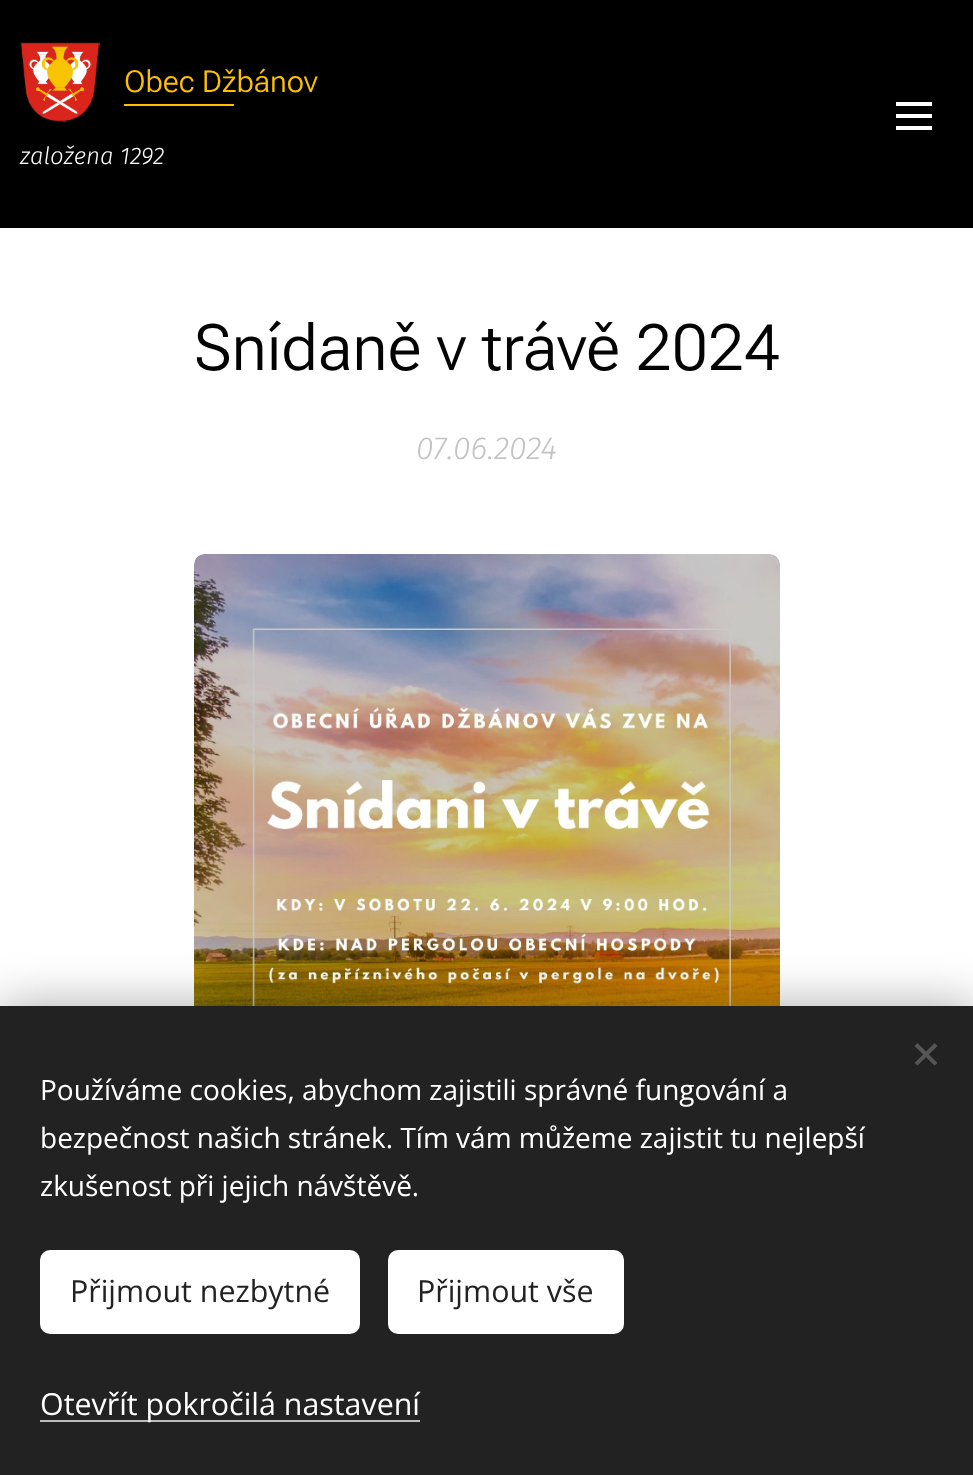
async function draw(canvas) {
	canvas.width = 973;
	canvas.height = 1475;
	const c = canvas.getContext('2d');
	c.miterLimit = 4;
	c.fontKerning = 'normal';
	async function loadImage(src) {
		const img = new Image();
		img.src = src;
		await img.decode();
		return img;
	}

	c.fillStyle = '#fff';
	c.fillRect(0, 0, 973, 1475);
	c.fillStyle = '#000';
	c.fillRect(0, 0, 973, 228);
	c.drawImage(await loadImage('img1.png'), 20, 42, 80, 80);
	c.font = '300 30.4px Roboto Flex';
	c.fillStyle = '#ffc000';
	c.fillText('Obec Džbánov', 124, 92);
	c.fillRect(124, 104, 110, 2);
	c.font = 'italic 300 24px Fira Sans';
	c.fillStyle = '#fff';
	c.fillText('založena 1292', 20, 164);
	for (const [x, y, w, h, color] of [
		[896, 114, 36, 4, '#fff'],
		[896, 102, 36, 4, '#fff'],
		[896, 126, 36, 4, '#fff'],
	]) {
		c.fillStyle = color;
		c.fillRect(x, y, w, h);
	}
	c.font = '300 64px Roboto Flex';
	c.fillStyle = '#030303';
	c.fillText('Snídaně v trávě 2024', 194, 370);
	c.font = 'italic 300 32px Fira Sans';
	c.fillStyle = '#c3c3c3';
	c.fillText('07.06.2024', 416, 459);
	c.drawImage(await loadImage('img2.png'), 194, 554, 586, 452);
	c.fillStyle = '#00000054';
	c.filter = 'blur(25px)';
	c.beginPath();
	c.rect(0, 1006, 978, 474);
	c.fill();
	c.filter = 'none';
	c.fillStyle = '#222';
	c.fillRect(0, 1006, 973, 469);
	c.fillStyle = '#555';
	c.beginPath();
	c.moveTo(914.5, 1063);
	c.lineTo(934.5, 1043);
	c.lineTo(937.5, 1046);
	c.lineTo(917.5, 1065.5);
	c.closePath();
	c.fill();
	c.beginPath();
	c.moveTo(917.5, 1043);
	c.lineTo(937.5, 1063);
	c.lineTo(934.5, 1065.5);
	c.lineTo(914.5, 1046);
	c.closePath();
	c.fill();
	c.font = '28px Open Sans';
	c.fillStyle = '#fff';
	for (const [text, x, y] of [
		['Používáme cookies, abychom zajistili správné fungování a', 40, 1100],
		['bezpečnost našich stránek. Tím vám můžeme zajistit tu nejlepší', 40, 1148],
		['zkušenost při jejich návštěvě.', 40, 1196],
	]) {
		c.fillText(text, x, y);
	}
	c.beginPath();
	c.roundRect(40, 1250, 320, 84, 10);
	c.fill();
	c.font = '30.4px Open Sans';
	c.fillStyle = '#222';
	c.fillText('Přijmout nezbytné', 70, 1302);
	c.fillStyle = '#fff';
	c.beginPath();
	c.roundRect(388, 1250, 236, 84, 10);
	c.fill();
	c.fillStyle = '#222';
	c.fillText('Přijmout vše', 417, 1302);
	c.fillStyle = '#bdbdbd';
	c.fillRect(40, 1420, 380, 2);
	c.fillStyle = '#fff';
	c.fillText('Otevřít pokročilá nastavení', 40, 1415);
}

draw(document.querySelector('canvas'));
